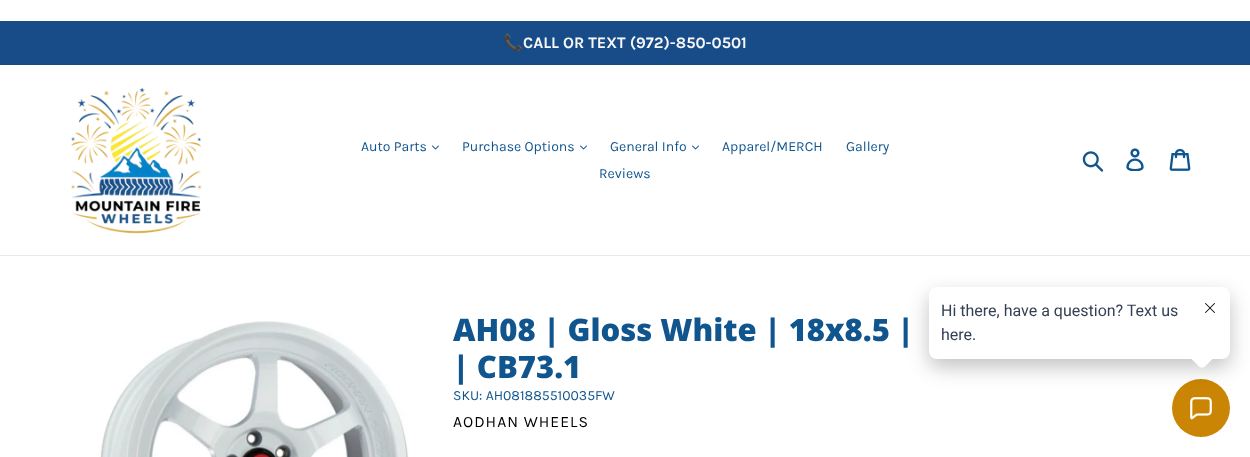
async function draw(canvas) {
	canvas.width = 1250;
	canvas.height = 457;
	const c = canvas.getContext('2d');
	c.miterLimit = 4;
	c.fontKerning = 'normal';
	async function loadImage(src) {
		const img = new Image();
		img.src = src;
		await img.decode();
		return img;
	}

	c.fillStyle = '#fff';
	c.fillRect(0, 0, 1250, 457);
	c.fillStyle = '#184c89';
	c.fillRect(0, 21, 1250, 44);
	c.font = 'bold 16px Noto Color Emoji';
	c.fillStyle = '#f7f7f7';
	c.fillText('📞', 503, 48);
	c.font = 'bold 16px Karla';
	c.fillText('CALL OR TEXT (972)-850-0501', 523, 48);
	c.fillStyle = '#e8e9eb';
	c.fillRect(0, 255, 1250, 1);
	c.drawImage(await loadImage('img1.png'), 71, 87, 131, 147);
	c.font = '14px Karla';
	c.fillStyle = '#10558e';
	c.fillText('Auto Parts', 361, 151);
	c.drawImage(await loadImage('img2.png'), 432, 145, 7, 5);
	c.fillText('Purchase Options', 462, 151);
	c.drawImage(await loadImage('img2.png'), 580, 145, 7, 5);
	c.fillText('General Info', 610, 151);
	c.drawImage(await loadImage('img2.png'), 692, 145, 7, 5);
	for (const [text, x, y] of [
		['Apparel/MERCH', 722, 151],
		['Gallery', 846, 151],
		['Reviews', 599, 178],
	]) {
		c.fillText(text, x, y);
	}
	c.drawImage(await loadImage('img3.png'), 1082, 151, 22, 21);
	c.drawImage(await loadImage('img4.png'), 1126, 148, 18, 23);
	c.drawImage(await loadImage('img5.png'), 1169, 148, 22, 23);
	c.drawImage(await loadImage('img6.png'), 99, 321, 310, 136);
	c.font = '800 31px Open Sans';
	c.fillText('AH08 | Gloss White | 18x8.5 |', 453, 341);
	c.fillText('| CB73.1', 453, 378);
	c.font = '14px Karla';
	c.fillText('SKU: AH081885510035FW', 453, 400);
	c.letterSpacing = '1px';
	c.font = '15.75px Karla';
	c.fillStyle = '#000';
	c.fillText('AODHAN WHEELS', 453, 427);
	c.fillStyle = '#ca8504';
	c.beginPath();
	c.arc(1201, 408, 29, 0, 2 * Math.PI);
	c.fill();
	c.drawImage(await loadImage('img8.png'), 1190, 397, 22, 23);
	c.fillStyle = '#0000003d';
	c.filter = 'blur(10px)';
	c.beginPath();
	c.roundRect(929, 295, 301, 72, 8);
	c.fill();
	c.filter = 'none';
	c.fillStyle = '#fff';
	c.beginPath();
	c.roundRect(929, 287, 301, 72, 8);
	c.fill();
	c.letterSpacing = '0px';
	c.font = '16px Roboto';
	c.fillStyle = '#344054';
	c.fillText('Hi there, have a question? Text us', 941, 316);
	c.fillText('here.', 941, 340);
	c.fillStyle = '#fff';
	c.beginPath();
	c.moveTo(1205, 343.5);
	c.lineTo(1213.5, 352);
	c.bezierCurveTo(1215, 353.5, 1215, 356.5, 1213.5, 358);
	c.lineTo(1205, 366.5);
	c.bezierCurveTo(1203.5, 368, 1200.5, 368, 1199, 366.5);
	c.lineTo(1190.5, 358);
	c.bezierCurveTo(1189, 356.5, 1189, 353.5, 1190.5, 352);
	c.lineTo(1199, 343.5);
	c.bezierCurveTo(1200.5, 342, 1203.5, 342, 1205, 343.5);
	c.closePath();
	c.fill();
	c.drawImage(await loadImage('img7.png'), 1205, 303, 10, 10);
}

draw(document.querySelector('canvas'));
